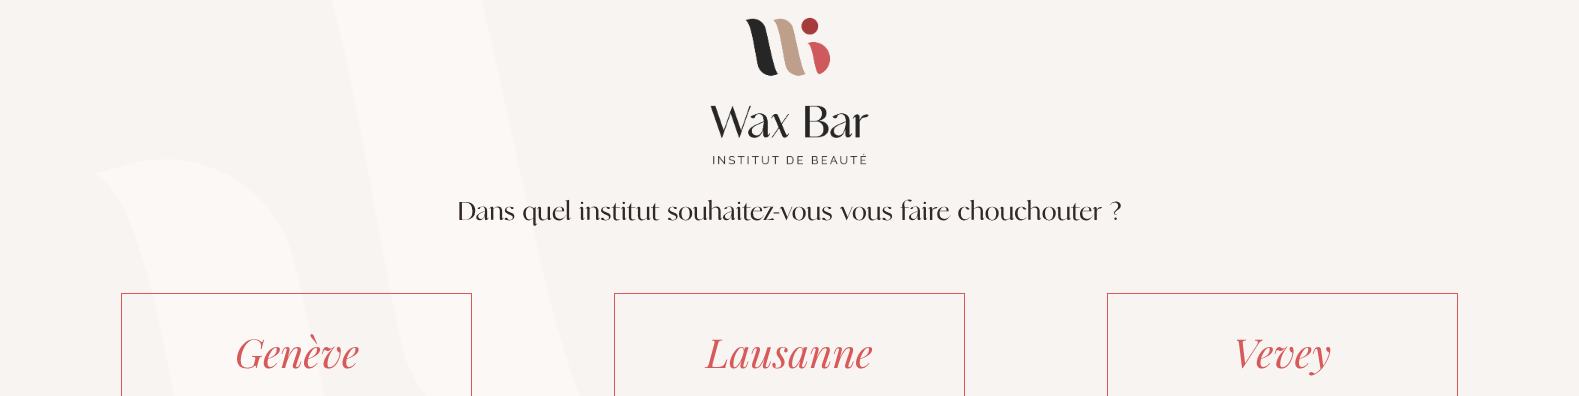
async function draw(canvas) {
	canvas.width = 1579;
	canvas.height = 396;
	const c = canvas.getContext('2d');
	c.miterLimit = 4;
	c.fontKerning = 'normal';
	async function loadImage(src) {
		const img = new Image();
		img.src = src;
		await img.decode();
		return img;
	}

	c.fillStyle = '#fff';
	c.fillRect(0, 0, 1579, 396);
	c.drawImage(await loadImage('img1.png'), 0, 0, 1579, 396);
	c.drawImage(await loadImage('img2.png'), 710, 17, 159, 148);
	c.font = '28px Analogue';
	c.fillStyle = '#332626';
	c.fillText('Dans quel institut souhaitez-vous vous faire chouchouter ?', 458, 220);
	c.strokeStyle = '#d75a5b';
	c.strokeRect(121.5, 293.5, 350, 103);
	c.font = 'italic 40px Playfair Display';
	c.fillStyle = '#d75a5b';
	c.fillText('Genève', 235, 368);
	c.strokeRect(614.5, 293.5, 350, 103);
	c.fillText('Lausanne', 706, 368);
	c.strokeRect(1107.5, 293.5, 350, 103);
	c.fillText('Vevey', 1233, 368);
}

draw(document.querySelector('canvas'));
